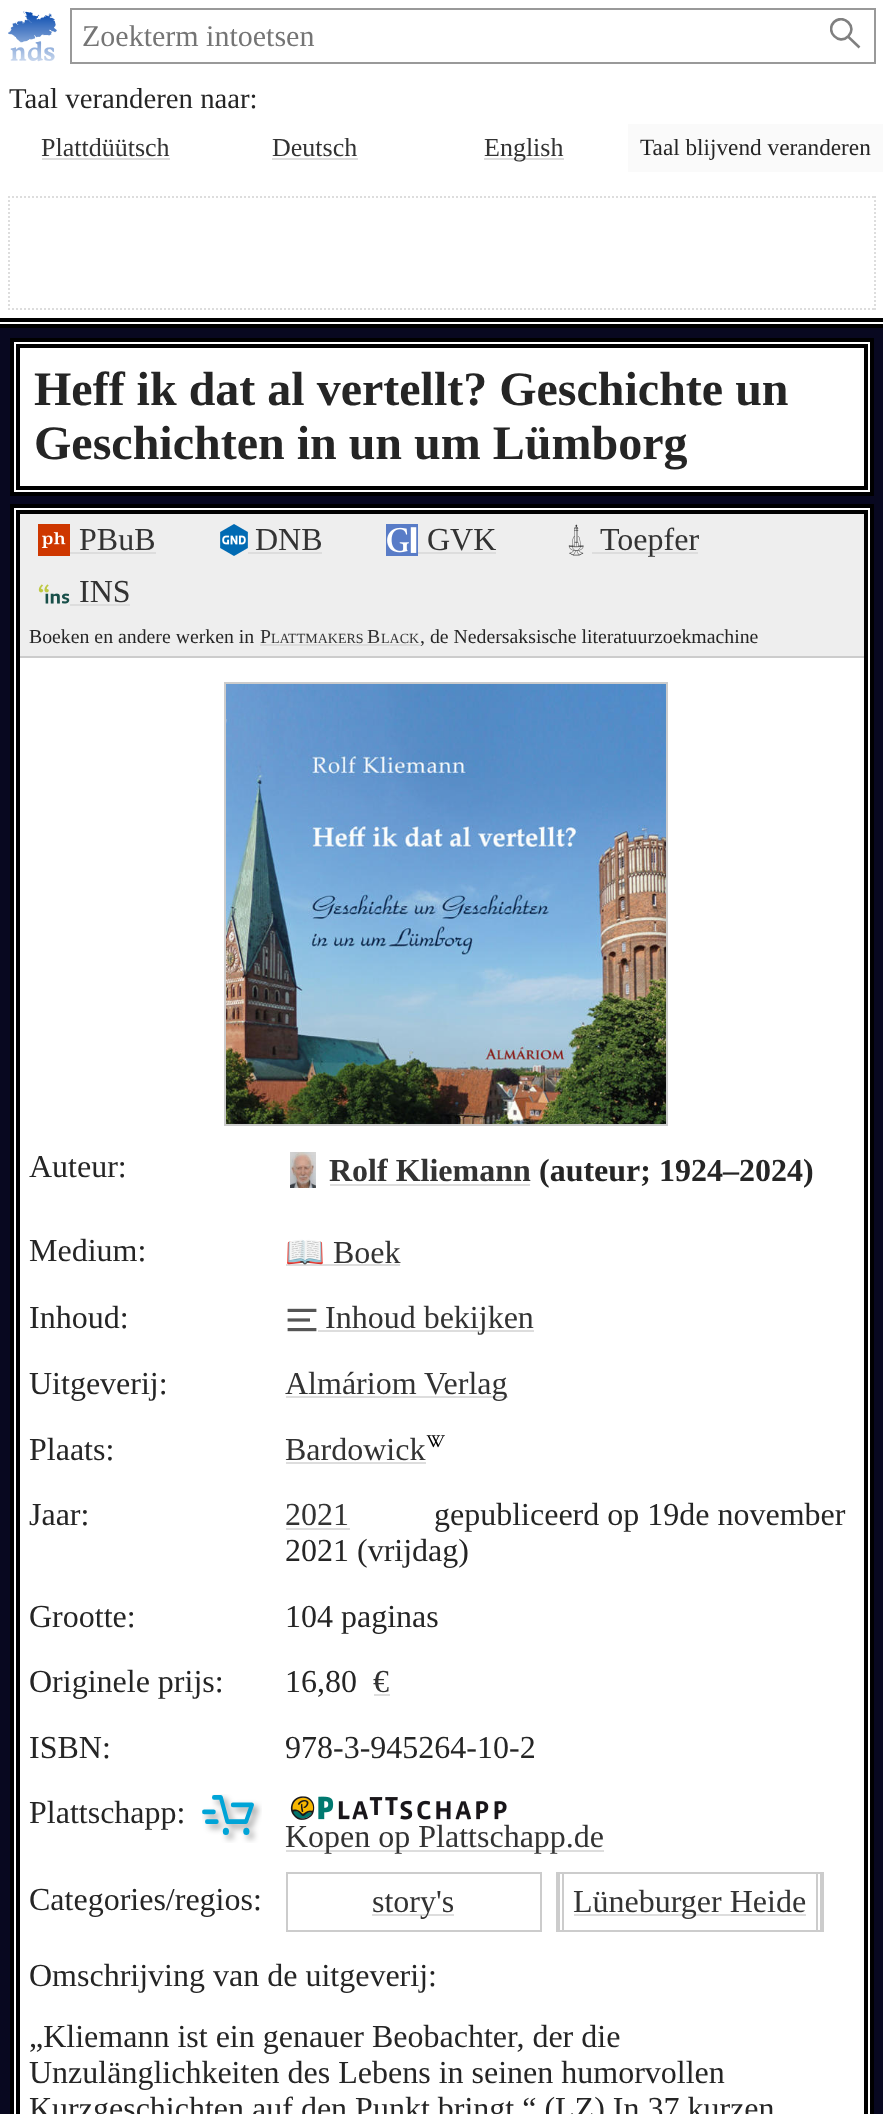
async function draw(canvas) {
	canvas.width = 883;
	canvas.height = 2114;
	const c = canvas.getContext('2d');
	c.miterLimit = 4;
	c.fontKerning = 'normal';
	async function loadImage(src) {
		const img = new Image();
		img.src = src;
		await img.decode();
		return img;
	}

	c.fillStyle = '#080820';
	c.fillRect(0, 0, 883, 2114);
	for (const [x, y, w, h, color] of [
		[0, 0, 883, 324, '#fff'],
		[0, 318, 883, 4, '#000'],
		[0, 324, 883, 4, '#000'],
	]) {
		c.fillStyle = color;
		c.fillRect(x, y, w, h);
	}
	c.drawImage(await loadImage('img1.png'), 8, 10, 49, 52);
	c.strokeStyle = '#999';
	c.lineWidth = 2;
	c.strokeRect(71, 9, 804, 54);
	c.font = '30px Liberation Serif';
	c.fillStyle = '#757575';
	c.fillText('Zoekterm intoetsen', 82, 46);
	c.save();
	c.beginPath();
	c.rect(830, 18, 32, 32);
	c.clip();
	c.beginPath();
	c.moveTo(848.5, 36);
	c.bezierCurveTo(857.5, 27, 843.5, 13, 834, 22);
	c.bezierCurveTo(825, 31.5, 839, 45.5, 848, 36.5);
	c.lineTo(859.5, 47.5);
	c.strokeStyle = '#808080';
	c.lineWidth = 2.6;
	c.stroke();
	c.restore();
	c.font = '28.75px Liberation Serif';
	c.fillStyle = '#252525';
	c.fillText('Taal veranderen naar:', 9, 108);
	c.font = '26px Liberation Serif';
	c.fillStyle = '#333';
	c.fillText('Plattdüütsch', 41, 156);
	c.fillStyle = '#ddd';
	c.fillRect(42, 158, 128, 2);
	c.fillStyle = '#333';
	c.fillText('Deutsch', 272, 156);
	c.fillStyle = '#ddd';
	c.fillRect(272, 158, 86, 2);
	c.fillRect(484, 158, 80, 2);
	c.fillStyle = '#333';
	c.fillText('English', 484, 156);
	c.fillStyle = '#fafafa';
	c.fillRect(628, 124, 255, 48);
	c.font = '23.25px Liberation Serif';
	c.fillStyle = '#252525';
	c.fillText('Taal blijvend veranderen', 640, 155);
	c.beginPath();
	c.moveTo(8, 197);
	c.lineTo(876, 197);
	c.strokeStyle = '#ddd';
	c.setLineDash([2, 2]);
	c.stroke();
	c.beginPath();
	c.moveTo(875, 196);
	c.lineTo(875, 310);
	c.stroke();
	c.beginPath();
	c.moveTo(8, 309);
	c.lineTo(876, 309);
	c.stroke();
	c.beginPath();
	c.moveTo(9, 196);
	c.lineTo(9, 310);
	c.stroke();
	c.fillStyle = '#fff';
	c.beginPath();
	c.rect(12, 340, 860, 154);
	c.fill();
	c.strokeStyle = '#000';
	c.lineWidth = 4;
	c.setLineDash([]);
	c.stroke();
	c.strokeRect(18, 346, 848, 142);
	c.font = 'bold 48px Liberation Serif';
	c.fillStyle = '#252525';
	c.fillText('Heff ik dat al vertellt? Geschichte un', 34, 405);
	c.fillText('Geschichten in un um Lümborg', 34, 459);
	c.fillStyle = '#fff';
	c.beginPath();
	c.rect(12, 506, 860, 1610);
	c.fill();
	c.stroke();
	c.strokeRect(18, 512, 848, 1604);
	c.fillStyle = '#eee';
	c.fillRect(20, 514, 844, 142);
	c.fillStyle = '#ccc';
	c.fillRect(20, 656, 844, 2);
	c.drawImage(await loadImage('img2.png'), 38, 524, 32, 32);
	c.font = '32px Liberation Serif';
	c.fillStyle = '#333';
	c.fillText('PBuB', 79, 550);
	c.fillStyle = '#ddd';
	c.fillRect(70, 552, 86, 2);
	c.drawImage(await loadImage('img3.png'), 220, 524, 28, 32);
	c.fillStyle = '#333';
	c.fillText('DNB', 255, 550);
	c.fillStyle = '#ddd';
	c.fillRect(248, 552, 74, 2);
	c.drawImage(await loadImage('img4.png'), 386, 524, 32, 32);
	c.fillStyle = '#333';
	c.fillText('GVK', 427, 550);
	c.fillStyle = '#ddd';
	c.fillRect(418, 552, 78, 2);
	c.drawImage(await loadImage('img5.png'), 568, 524, 16, 32);
	c.fillRect(592, 552, 106, 2);
	c.fillStyle = '#333';
	c.fillText('Toepfer', 600, 550);
	c.drawImage(await loadImage('img6.png'), 38, 584, 32, 20);
	c.fillText('INS', 79, 602);
	c.fillStyle = '#ddd';
	c.fillRect(70, 604, 60, 2);
	c.font = '19.8px Liberation Serif';
	c.fillStyle = '#252525';
	c.fillText('Boeken en andere werken in', 29, 643);
	c.fillStyle = '#333';
	c.fillText('P', 260, 643);
	c.font = '14px Liberation Serif';
	c.fillText('LATTMAKERS', 271, 643);
	c.fillStyle = '#ddd';
	c.fillRect(260, 644, 160, 2);
	c.font = '19.8px Liberation Serif';
	c.fillStyle = '#333';
	c.fillText('B', 367, 643);
	c.font = '14px Liberation Serif';
	c.fillText('LACK', 381, 643);
	c.font = '19.8px Liberation Serif';
	c.fillStyle = '#252525';
	c.fillText(', de Nedersaksische literatuurzoekmachine', 420, 643);
	c.drawImage(await loadImage('img7.png'), 226, 684, 440, 440);
	c.strokeStyle = '#ccc';
	c.lineWidth = 2;
	c.strokeRect(225, 683, 442, 442);
	c.font = '32px Liberation Serif';
	c.fillText('Auteur:', 29, 1177);
	c.drawImage(await loadImage('img8.png'), 290, 1152, 26, 36);
	c.font = 'bold 32px Liberation Serif';
	c.fillStyle = '#333';
	c.fillText('Rolf Kliemann', 329, 1181);
	c.fillStyle = '#ddd';
	c.fillRect(330, 1184, 200, 2);
	c.fillStyle = '#252525';
	c.fillText('(auteur; 1924–2024)', 539, 1181);
	c.font = '32px Liberation Serif';
	c.fillText('Medium:', 29, 1261);
	c.fillStyle = '#ddd';
	c.fillRect(286, 1264, 114, 2);
	c.font = '32px Noto Color Emoji';
	c.fillStyle = '#333';
	c.fillText('📖', 285, 1263);
	c.font = '32px Liberation Serif';
	c.fillText('Boek', 333, 1263);
	c.fillStyle = '#252525';
	c.fillText('Inhoud:', 29, 1328);
	c.drawImage(await loadImage('img9.png'), 287, 1308, 30, 24);
	c.fillStyle = '#ddd';
	c.fillRect(318, 1330, 216, 2);
	c.fillStyle = '#333';
	c.fillText('Inhoud bekijken', 325, 1328);
	c.fillStyle = '#252525';
	c.fillText('Uitgeverij:', 29, 1394);
	c.fillStyle = '#ddd';
	c.fillRect(286, 1396, 222, 2);
	c.fillStyle = '#333';
	c.fillText('Almáriom Verlag', 285, 1394);
	c.fillStyle = '#252525';
	c.fillText('Plaats:', 29, 1460);
	c.fillStyle = '#333';
	c.fillText('Bardowick', 285, 1460);
	c.fillStyle = '#ddd';
	c.fillRect(286, 1462, 140, 2);
	c.drawImage(await loadImage('img10.png'), 426, 1435, 19, 13);
	c.fillStyle = '#252525';
	c.fillText('Jaar:', 29, 1525);
	c.fillStyle = '#333';
	c.fillText('2021', 285, 1525);
	c.fillStyle = '#ddd';
	c.fillRect(286, 1528, 64, 2);
	c.fillStyle = '#252525';
	for (const [text, x, y] of [
		['gepubliceerd op 19de november', 434, 1525],
		['2021 (vrijdag)', 285, 1561],
		['Grootte:', 29, 1627],
		['104 paginas', 285, 1627],
		['Originele prijs:', 29, 1692],
		['16,80', 285, 1692],
	]) {
		c.fillText(text, x, y);
	}
	c.fillStyle = '#333';
	c.fillText('€', 373, 1692);
	c.fillStyle = '#ddd';
	c.fillRect(374, 1694, 16, 2);
	c.fillStyle = '#252525';
	for (const [text, x, y] of [
		['ISBN:', 29, 1758],
		['978-3-945264-10-2', 285, 1758],
		['Plattschapp:', 29, 1823],
	]) {
		c.fillText(text, x, y);
	}
	c.drawImage(await loadImage('img11.png'), 202, 1794, 60, 49);
	c.drawImage(await loadImage('img12.png'), 290, 1796, 217, 24);
	c.fillStyle = '#ddd';
	c.fillRect(286, 1850, 318, 2);
	c.fillStyle = '#333';
	c.fillText('Kopen op Plattschapp.de', 285, 1847);
	c.fillStyle = '#252525';
	c.fillText('Categories/regios:', 29, 1910);
	c.strokeRect(287, 1873, 254, 58);
	c.fillStyle = '#ddd';
	c.fillRect(372, 1914, 82, 2);
	c.fillStyle = '#333';
	c.fillText('story\'s', 372, 1912);
	c.strokeRect(557, 1873, 266, 58);
	for (const [x, y, w, h, color] of [
		[816, 1874, 2, 56, '#ccc'],
		[820, 1874, 2, 56, '#ccc'],
		[558, 1874, 2, 56, '#ccc'],
		[562, 1874, 2, 56, '#ccc'],
		[574, 1914, 232, 2, '#ddd'],
	]) {
		c.fillStyle = color;
		c.fillRect(x, y, w, h);
	}
	c.fillStyle = '#333';
	c.fillText('Lüneburger Heide', 573, 1912);
	c.fillStyle = '#252525';
	for (const [text, x, y] of [
		['Omschrijving van de uitgeverij:', 29, 1986],
		['„Kliemann ist ein genauer Beobachter, der die', 29, 2047],
		['Unzulänglichkeiten des Lebens in seinen humorvollen', 29, 2083],
		['Kurzgeschichten auf den Punkt bringt.“ (LZ) In 37 kurzen', 29, 2119],
	]) {
		c.fillText(text, x, y);
	}
}

draw(document.querySelector('canvas'));
